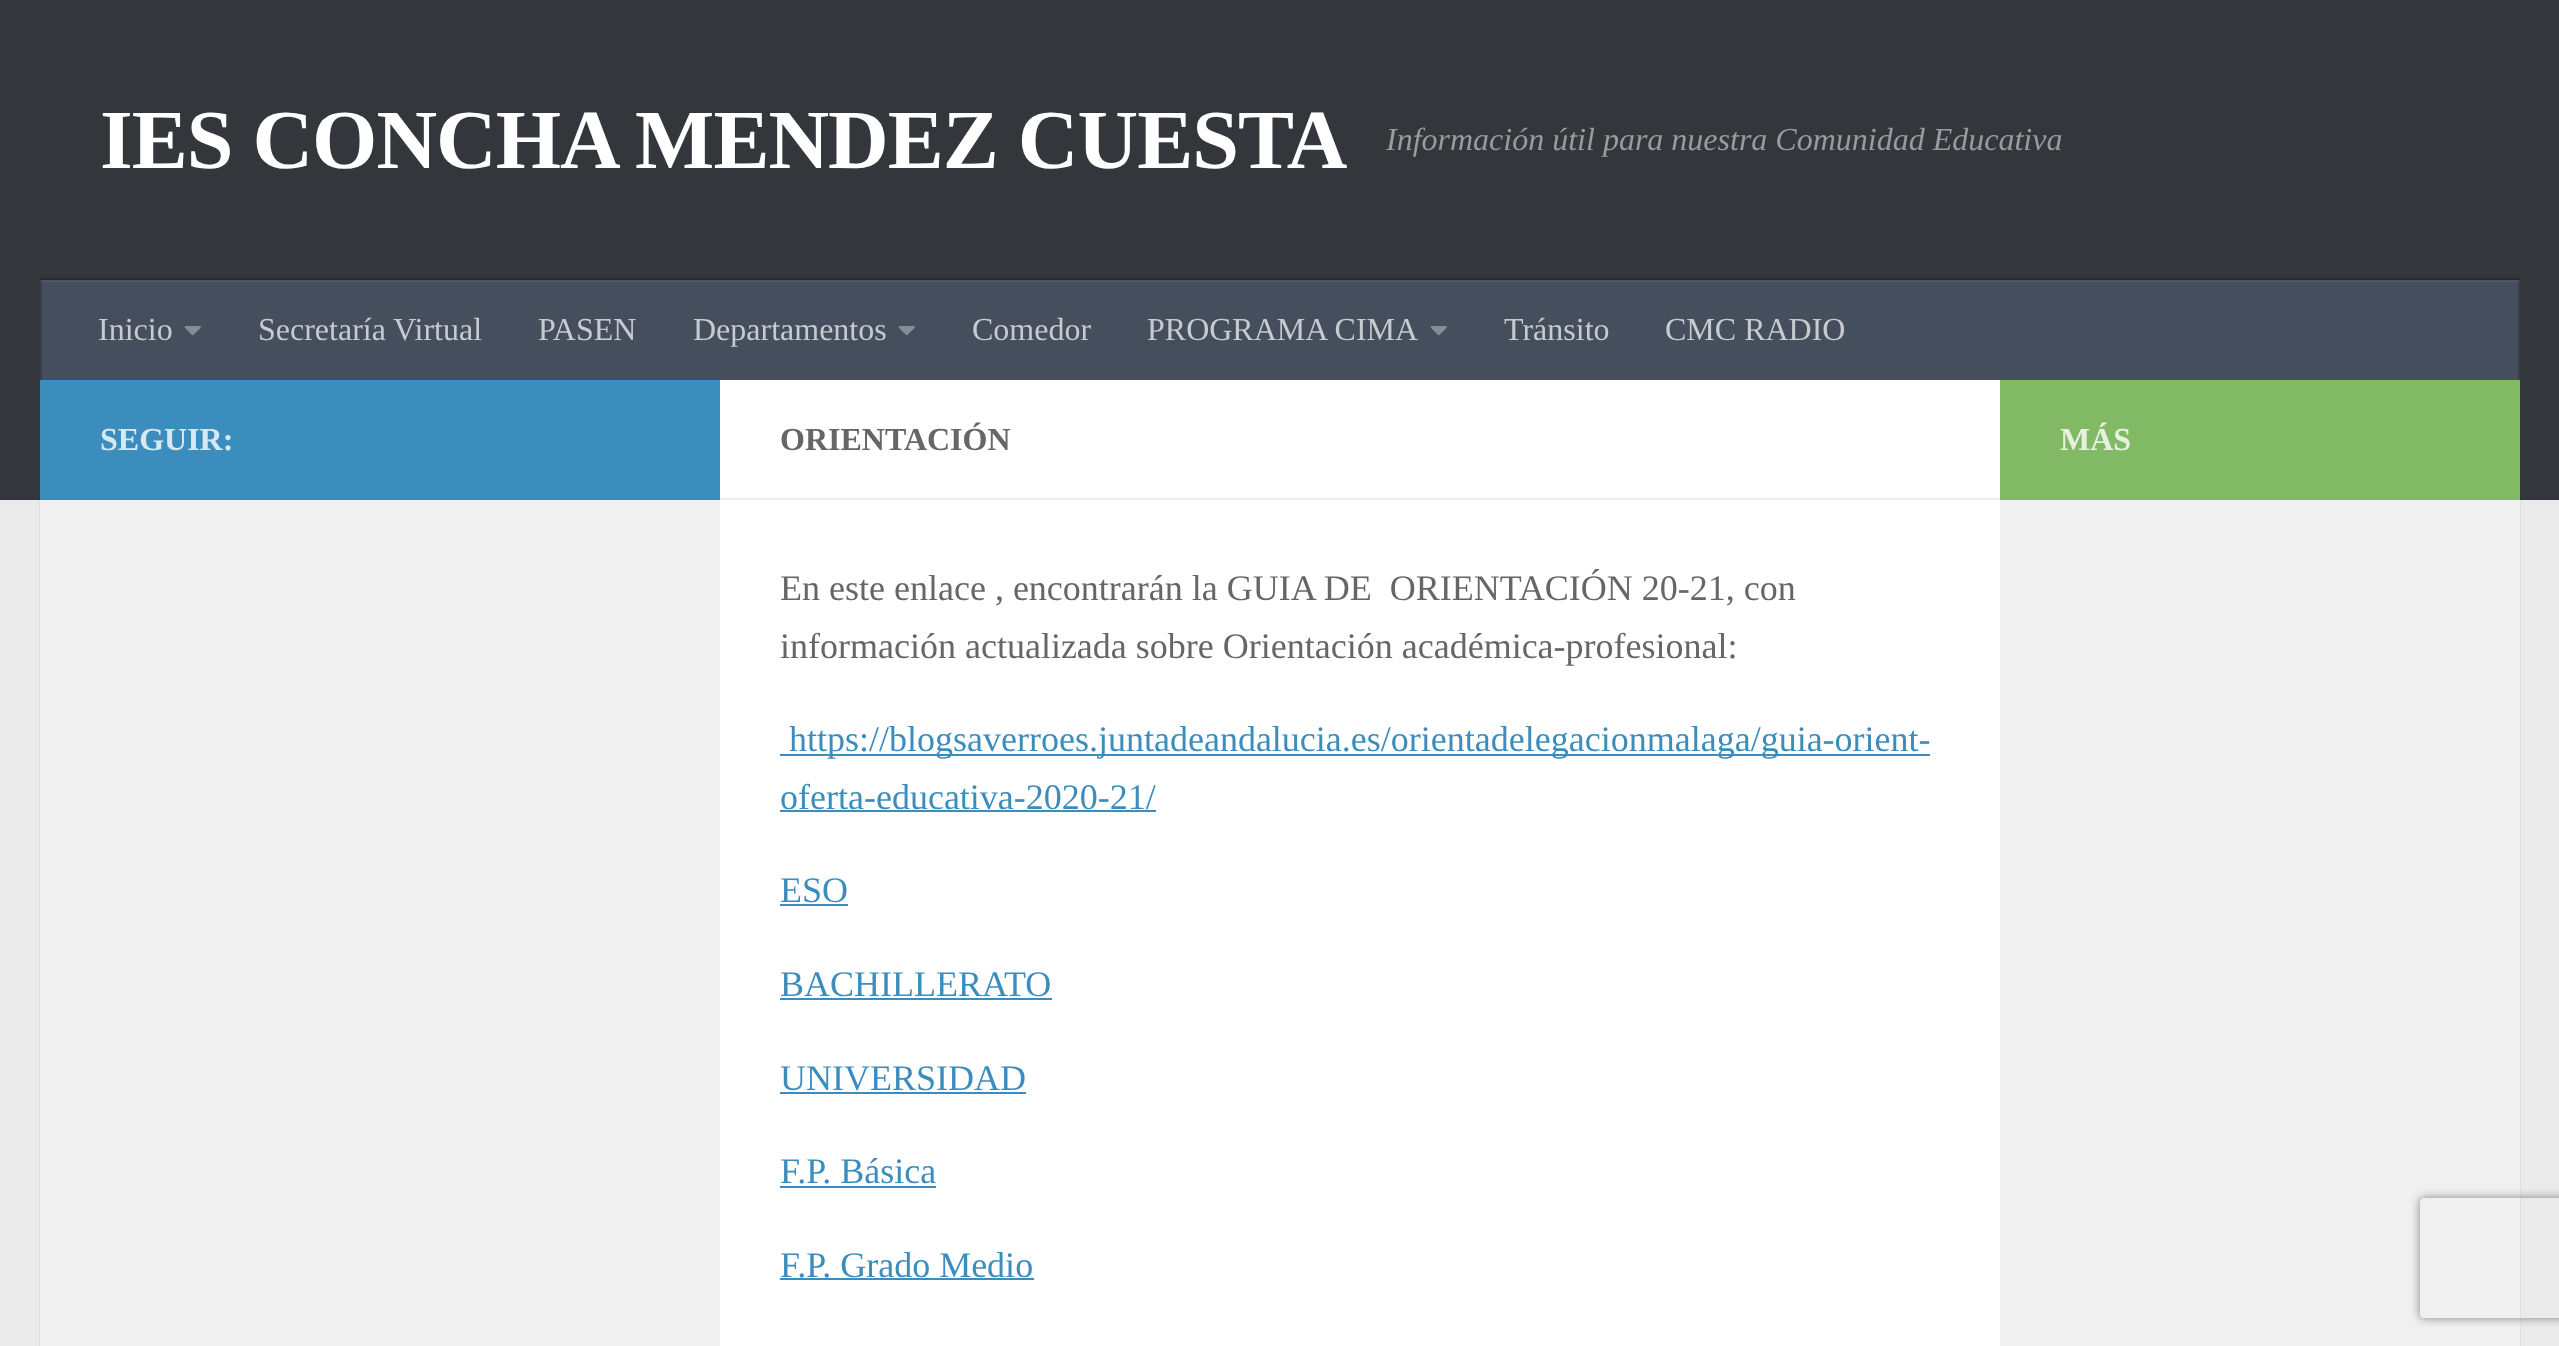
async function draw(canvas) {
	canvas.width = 2559;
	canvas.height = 1346;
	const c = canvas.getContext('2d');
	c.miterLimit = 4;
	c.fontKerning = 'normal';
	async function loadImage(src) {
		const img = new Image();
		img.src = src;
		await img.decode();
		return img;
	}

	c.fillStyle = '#eaeaea';
	c.fillRect(0, 0, 2559, 1346);
	c.fillStyle = '#0000001a';
	c.filter = 'blur(1px)';
	c.beginPath();
	c.rect(40, 382, 2480, 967);
	c.fill();
	c.filter = 'none';
	c.fillStyle = '#33363b';
	c.fillRect(0, 0, 2559, 500);
	c.letterSpacing = '-1px';
	c.font = 'bold 84px Liberation Serif';
	c.fillStyle = '#fff';
	c.fillText('IES CONCHA MENDEZ CUESTA', 100, 168);
	c.letterSpacing = '0px';
	c.font = 'italic 32px Liberation Serif';
	c.fillStyle = '#999b9d';
	c.fillText('Información útil para nuestra Comunidad Educativa', 1386, 150);
	for (const [x, y, w, h, color] of [
		[40, 278, 2480, 2, '#292b2f'],
		[42, 282, 2476, 98, '#454e5c'],
		[40, 280, 2480, 2, '#4e5764'],
		[2518, 280, 2, 100, '#373e4a'],
		[2518, 280, 2, 2, '#414853'],
		[40, 280, 2, 100, '#373e4a'],
		[40, 280, 2, 2, '#414853'],
	]) {
		c.fillStyle = color;
		c.fillRect(x, y, w, h);
	}
	c.font = '32px Liberation Serif';
	c.fillStyle = '#c7cace';
	c.fillText('Inicio', 98, 340);
	c.drawImage(await loadImage('img1.png'), 184, 326, 17, 10);
	for (const [text, x, y] of [
		['Secretaría Virtual', 258, 340],
		['PASEN', 538, 340],
		['Departamentos', 693, 340],
	]) {
		c.fillText(text, x, y);
	}
	c.drawImage(await loadImage('img1.png'), 898, 326, 17, 10);
	c.fillText('Comedor', 972, 340);
	c.fillText('PROGRAMA CIMA', 1147, 340);
	c.drawImage(await loadImage('img1.png'), 1430, 326, 17, 10);
	c.fillText('Tránsito', 1504, 340);
	c.fillText('CMC RADIO', 1665, 340);
	c.fillStyle = '#fff';
	c.fillRect(720, 380, 1280, 966);
	c.fillStyle = '#3b8dbd';
	c.fillRect(40, 380, 680, 120);
	c.font = 'bold 32px Liberation Serif';
	c.fillStyle = '#d8e8f2';
	c.fillText('SEGUIR:', 100, 450);
	c.fillStyle = '#eee';
	c.fillRect(720, 498, 1280, 2);
	c.fillStyle = '#666';
	c.fillText('ORIENTACIÓN', 780, 450);
	c.font = '36px Liberation Serif';
	c.fillText('En este enlace , encontrarán la GUIA DE  ORIENTACIÓN 20-21, con', 780, 600);
	c.fillText('información actualizada sobre Orientación académica-profesional:', 780, 658);
	c.fillStyle = '#3b8dbd';
	c.fillRect(780, 754, 1150, 2);
	c.fillText('https://blogsaverroes.juntadeandalucia.es/orientadelegacionmalaga/guia-orient-', 789, 751);
	c.fillText('oferta-educativa-2020-21/', 780, 809);
	c.fillRect(780, 810, 376, 2);
	c.fillText('ESO', 780, 902);
	c.fillRect(780, 904, 68, 2);
	c.fillText('BACHILLERATO', 780, 996);
	c.fillRect(780, 998, 272, 2);
	c.fillText('UNIVERSIDAD', 780, 1090);
	c.fillRect(780, 1092, 246, 2);
	c.fillText('F.P. Básica', 780, 1183);
	c.fillRect(780, 1186, 156, 2);
	c.fillText('F.P. Grado Medio', 780, 1277);
	c.fillRect(780, 1278, 254, 2);
	c.fillStyle = '#82b965';
	c.fillRect(2000, 380, 520, 120);
	c.font = 'bold 32px Liberation Serif';
	c.fillStyle = '#e6f1e0';
	c.fillText('MÁS', 2060, 450);
	c.fillStyle = '#f0f0f0';
	c.fillRect(40, 500, 680, 846);
	c.fillRect(2000, 500, 520, 846);
	c.save();
	c.beginPath();
	c.moveTo(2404, 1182);
	c.lineTo(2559, 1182);
	c.lineTo(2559, 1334);
	c.lineTo(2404, 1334);
	c.closePath();
	c.moveTo(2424, 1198);
	c.lineTo(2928, 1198);
	c.bezierCurveTo(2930, 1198, 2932, 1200, 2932, 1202);
	c.lineTo(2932, 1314);
	c.bezierCurveTo(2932, 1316, 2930, 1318, 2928, 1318);
	c.lineTo(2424, 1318);
	c.bezierCurveTo(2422, 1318, 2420, 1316, 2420, 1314);
	c.lineTo(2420, 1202);
	c.bezierCurveTo(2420, 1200, 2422, 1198, 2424, 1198);
	c.closePath();
	c.clip('evenodd');
	c.fillStyle = '#808080';
	c.filter = 'blur(5px)';
	c.beginPath();
	c.roundRect(2420, 1198, 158, 120, 4);
	c.fill();
	c.filter = 'none';
	c.restore();
}

draw(document.querySelector('canvas'));
